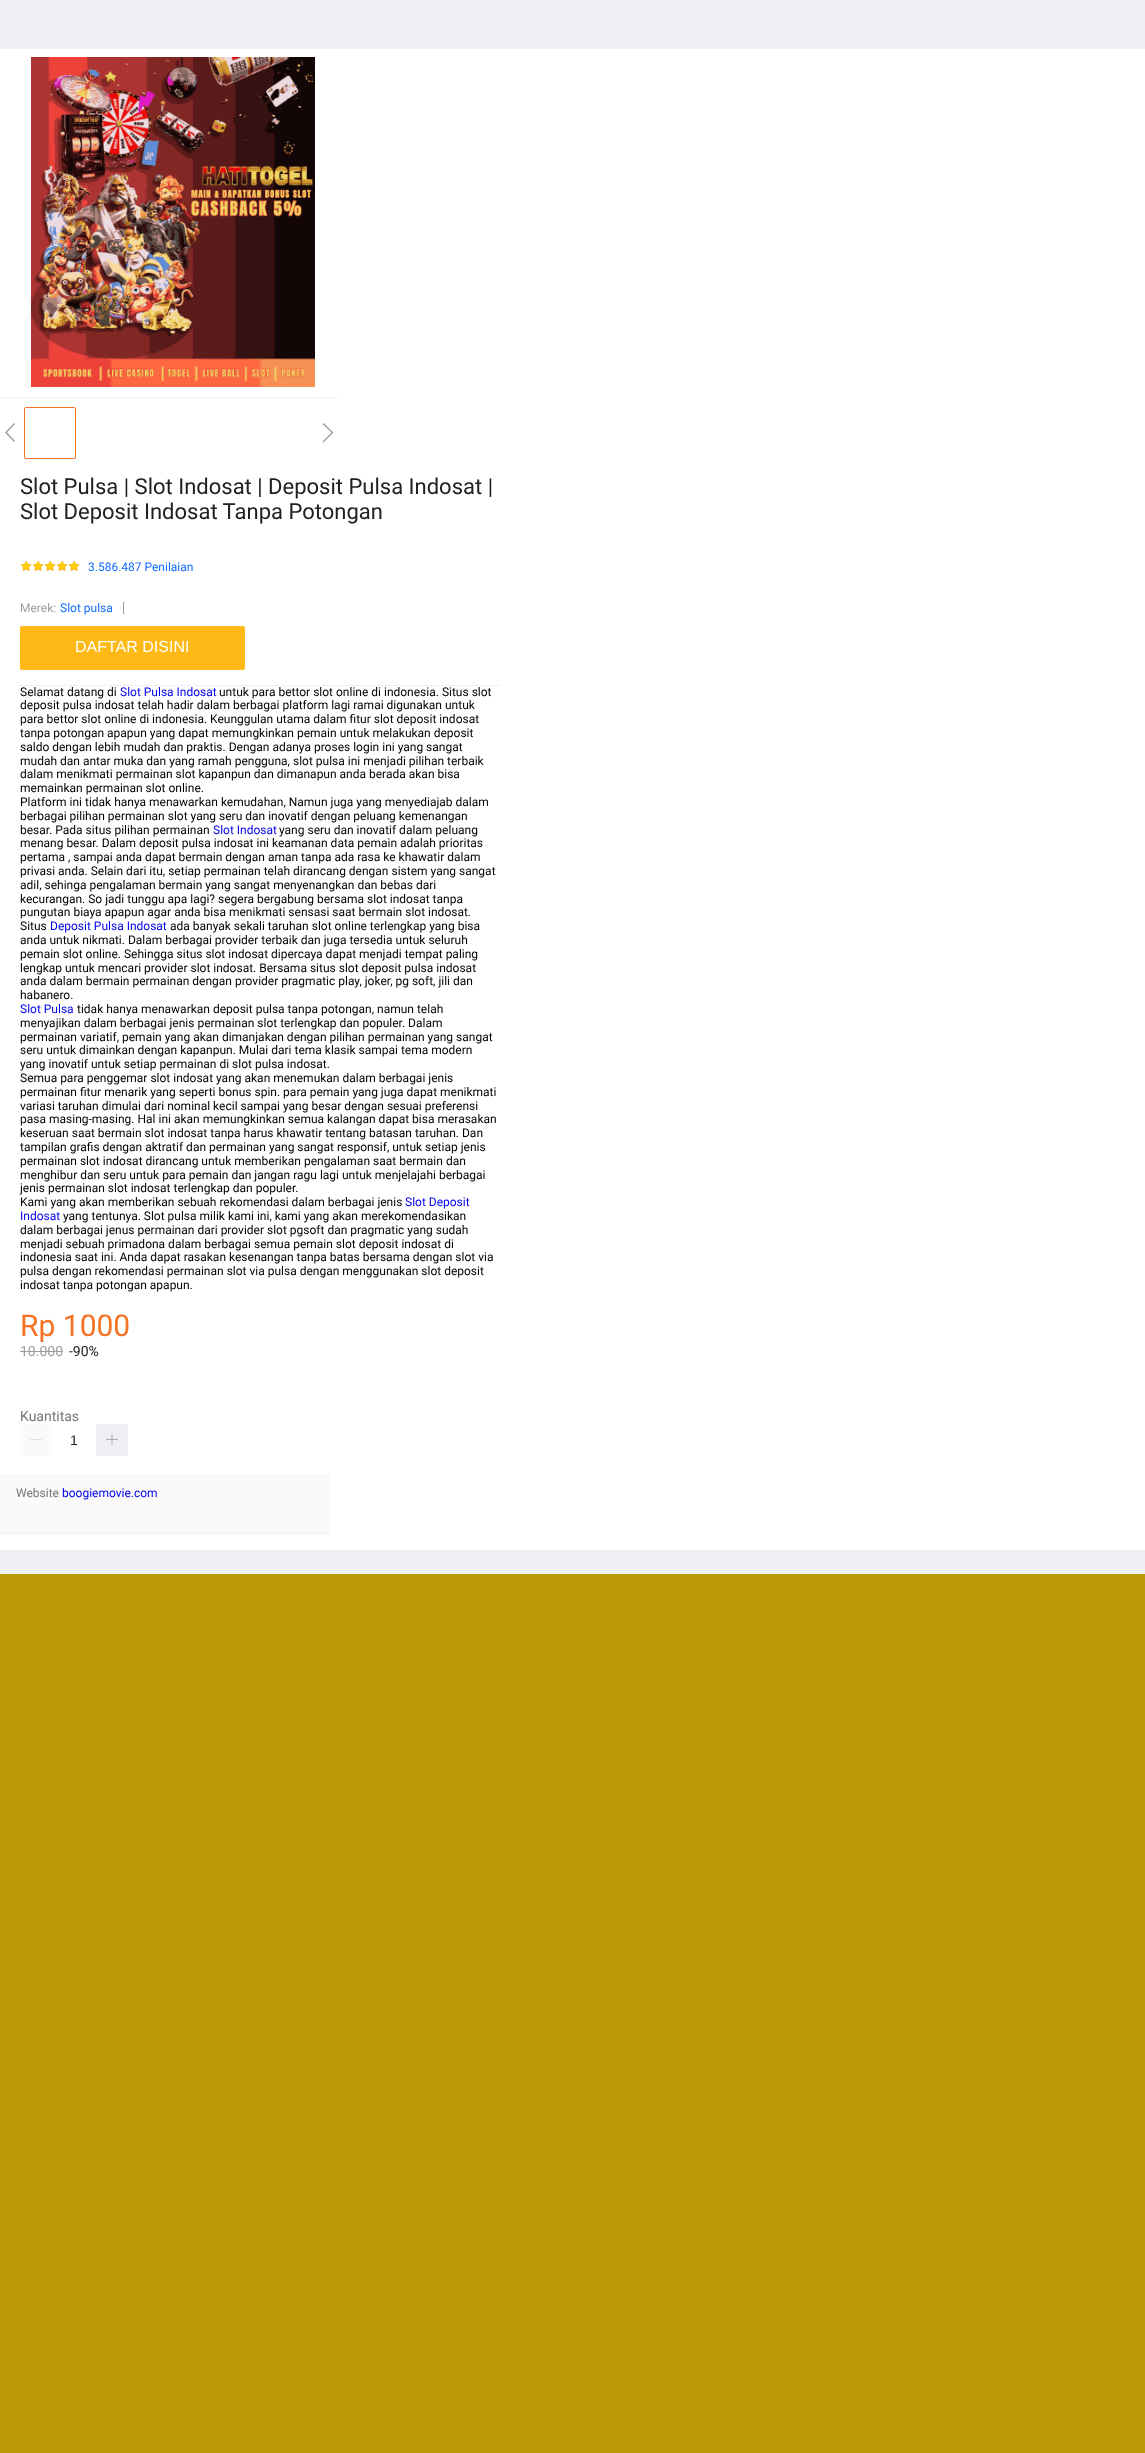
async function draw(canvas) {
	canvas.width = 1145;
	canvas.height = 2453;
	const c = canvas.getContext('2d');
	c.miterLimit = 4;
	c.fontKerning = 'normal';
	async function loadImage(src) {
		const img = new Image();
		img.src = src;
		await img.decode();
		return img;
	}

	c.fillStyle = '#bd9b06';
	c.fillRect(0, 0, 1145, 2453);
	for (const [x, y, w, h, color] of [
		[0, 0, 1145, 49, '#eff0f5'],
		[0, 1550, 1145, 24, '#eff0f5'],
		[0, 49, 1145, 1501, '#fff'],
		[0, 397, 338, 1, '#eff0f5'],
	]) {
		c.fillStyle = color;
		c.fillRect(x, y, w, h);
	}
	c.drawImage(await loadImage('img1.png'), 31, 57, 284, 330);
	c.fillStyle = '#9e9e9e';
	c.beginPath();
	c.moveTo(15, 441);
	c.lineTo(7, 432.5);
	c.lineTo(15, 424);
	c.lineTo(14, 423);
	c.lineTo(5, 432.5);
	c.lineTo(14, 442);
	c.closePath();
	c.fill();
	c.beginPath();
	c.roundRect(24.5, 407.5, 51, 51, 1.5);
	c.strokeStyle = '#f57224';
	c.stroke();
	c.beginPath();
	c.moveTo(323.5, 442.5);
	c.lineTo(322.5, 441.5);
	c.lineTo(331.5, 432.5);
	c.lineTo(322.5, 424);
	c.lineTo(323.5, 423);
	c.lineTo(333.5, 432.5);
	c.closePath();
	c.fill();
	c.font = '22px Roboto';
	c.fillStyle = '#212121';
	c.fillText('Slot Pulsa | Slot Indosat | Deposit Pulsa Indosat |', 20, 494);
	c.fillText('Slot Deposit Indosat Tanpa Potongan', 20, 519);
	c.drawImage(await loadImage('img2.png'), 20, 560, 12, 12);
	c.drawImage(await loadImage('img2.png'), 32, 560, 12, 12);
	c.drawImage(await loadImage('img2.png'), 44, 560, 12, 12);
	c.drawImage(await loadImage('img2.png'), 56, 560, 12, 12);
	c.drawImage(await loadImage('img2.png'), 68, 560, 12, 12);
	c.font = '12px Roboto';
	c.fillStyle = '#136cff';
	c.fillText('3.586.487 Penilaian', 88, 571);
	c.fillStyle = '#eff0f5';
	c.fillRect(20, 685, 480, 1);
	c.fillStyle = '#9e9e9e';
	c.fillText('Merek:', 20, 612);
	c.fillStyle = '#136cff';
	c.fillText('Slot pulsa', 60, 612);
	c.fillStyle = '#9e9e9e';
	c.fillRect(123, 602, 1, 12);
	c.fillStyle = '#ffb916';
	c.beginPath();
	c.roundRect(20, 626, 225, 44, 2);
	c.fill();
	c.font = '16px Liberation Sans';
	c.fillStyle = '#fff';
	c.fillText('DAFTAR DISINI', 75, 652);
	c.font = '12px Roboto';
	c.fillStyle = '#000';
	c.fillText('Selamat datang di', 20, 696);
	c.fillStyle = '#00e';
	c.fillText('Slot Pulsa Indosat', 120, 696);
	c.fillStyle = '#000';
	for (const [text, x, y] of [
		['untuk para bettor slot online di indonesia. Situs slot', 219, 696],
		['deposit pulsa indosat telah hadir dalam berbagai platform lagi ramai digunakan untuk', 20, 709],
		['para bettor slot online di indonesia. Keunggulan utama dalam fitur slot deposit indosat', 20, 723],
		['tanpa potongan apapun yang dapat memungkinkan pemain untuk melakukan deposit', 20, 737],
		['saldo dengan lebih mudah dan praktis. Dengan adanya proses login ini yang sangat', 20, 751],
		['mudah dan antar muka dan yang ramah pengguna, slot pulsa ini menjadi pilihan terbaik', 20, 765],
		['dalam menikmati permainan slot kapanpun dan dimanapun anda berada akan bisa', 20, 778],
		['memainkan permainan slot online.', 20, 792],
		['Platform ini tidak hanya menawarkan kemudahan, Namun juga yang menyediajab dalam', 20, 806],
		['berbagai pilihan permainan slot yang seru dan inovatif dengan peluang kemenangan', 20, 820],
		['besar. Pada situs pilihan permainan', 20, 834],
	]) {
		c.fillText(text, x, y);
	}
	c.fillStyle = '#00e';
	c.fillText('Slot Indosat', 213, 834);
	c.fillStyle = '#000';
	for (const [text, x, y] of [
		['yang seru dan inovatif dalam peluang', 279, 834],
		['menang besar. Dalam deposit pulsa indosat ini keamanan data pemain adalah prioritas', 20, 847],
		['pertama , sampai anda dapat bermain dengan aman tanpa ada rasa ke khawatir dalam', 20, 861],
		['privasi anda. Selain dari itu, setiap permainan telah dirancang dengan sistem yang sangat', 20, 875],
		['adil, sehinga pengalaman bermain yang sangat menyenangkan dan bebas dari', 20, 889],
		['kecurangan. So jadi tunggu apa lagi? segera bergabung bersama slot indosat tanpa', 20, 903],
		['pungutan biaya apapun agar anda bisa menikmati sensasi saat bermain slot indosat.', 20, 916],
		['Situs', 20, 930],
	]) {
		c.fillText(text, x, y);
	}
	c.fillStyle = '#00e';
	c.fillText('Deposit Pulsa Indosat', 50, 930);
	c.fillStyle = '#000';
	for (const [text, x, y] of [
		['ada banyak sekali taruhan slot online terlengkap yang bisa', 170, 930],
		['anda untuk nikmati. Dalam berbagai provider terbaik dan juga tersedia untuk seluruh', 20, 944],
		['pemain slot online. Sehingga situs slot indosat dipercaya dapat menjadi tempat paling', 20, 958],
		['lengkap untuk mencari provider slot indosat. Bersama situs slot deposit pulsa indosat', 20, 972],
		['anda dalam bermain permainan dengan provider pragmatic play, joker, pg soft, jili dan', 20, 985],
		['habanero.', 20, 999],
	]) {
		c.fillText(text, x, y);
	}
	c.fillStyle = '#00e';
	c.fillText('Slot Pulsa', 20, 1013);
	c.fillStyle = '#000';
	for (const [text, x, y] of [
		['tidak hanya menawarkan deposit pulsa tanpa potongan, namun telah', 77, 1013],
		['menyajikan dalam berbagai jenis permainan slot terlengkap dan populer. Dalam', 20, 1027],
		['permainan variatif, pemain yang akan dimanjakan dengan pilihan permainan yang sangat', 20, 1041],
		['seru untuk dimainkan dengan kapanpun. Mulai dari tema klasik sampai tema modern', 20, 1054],
		['yang inovatif untuk setiap permainan di slot pulsa indosat.', 20, 1068],
		['Semua para penggemar slot indosat yang akan menemukan dalam berbagai jenis', 20, 1082],
		['permainan fitur menarik yang seperti bonus spin. para pemain yang juga dapat menikmati', 20, 1096],
		['variasi taruhan dimulai dari nominal kecil sampai yang besar dengan sesuai preferensi', 20, 1110],
		['pasa masing-masing. Hal ini akan memungkinkan semua kalangan dapat bisa merasakan', 20, 1123],
		['keseruan saat bermain slot indosat tanpa harus khawatir tentang batasan taruhan. Dan', 20, 1137],
		['tampilan grafis dengan aktratif dan permainan yang sangat responsif, untuk setiap jenis', 20, 1151],
		['permainan slot indosat dirancang untuk memberikan pengalaman saat bermain dan', 20, 1165],
		['menghibur dan seru untuk para pemain dan jangan ragu lagi untuk menjelajahi berbagai', 20, 1179],
		['jenis permainan slot indosat terlengkap dan populer.', 20, 1192],
		['Kami yang akan memberikan sebuah rekomendasi dalam berbagai jenis', 20, 1206],
	]) {
		c.fillText(text, x, y);
	}
	c.fillStyle = '#00e';
	c.fillText('Slot Deposit', 405, 1206);
	c.fillText('Indosat', 20, 1220);
	c.fillStyle = '#000';
	for (const [text, x, y] of [
		['yang tentunya. Slot pulsa milik kami ini, kami yang akan merekomendasikan', 63, 1220],
		['dalam berbagai jenus permainan dari provider slot pgsoft dan pragmatic yang sudah', 20, 1234],
		['menjadi sebuah primadona dalam berbagai semua pemain slot deposit indosat di', 20, 1248],
		['indonesia saat ini. Anda dapat rasakan kesenangan tanpa batas bersama dengan slot via', 20, 1261],
		['pulsa dengan rekomendasi permainan slot via pulsa dengan menggunakan slot deposit', 20, 1275],
		['indosat tanpa potongan apapun.', 20, 1289],
	]) {
		c.fillText(text, x, y);
	}
	c.font = '30px Roboto';
	c.fillStyle = '#f57224';
	c.fillText('Rp 1000', 20, 1336);
	c.font = '14px Roboto';
	c.fillStyle = '#9e9e9e';
	c.fillText('10.000', 20, 1356);
	c.fillRect(20, 1351, 43, 1);
	c.fillStyle = '#212121';
	c.fillText('-90%', 69, 1356);
	c.fillStyle = '#757575';
	c.fillText('Kuantitas', 20, 1421);
	c.fillStyle = '#fafafa';
	c.fillRect(20, 1424, 32, 32);
	c.drawImage(await loadImage('img3.png'), 30, 1439, 12, 1);
	c.fillStyle = '#eff0f5';
	c.fillRect(96, 1424, 32, 32);
	c.drawImage(await loadImage('img4.png'), 106, 1433, 12, 13);
	c.font = '14px Liberation Sans';
	c.fillStyle = '#212121';
	c.fillText('1', 70, 1445);
	c.fillStyle = '#fafafa';
	c.fillRect(0, 1474, 330, 59);
	c.font = '12px Roboto';
	c.fillStyle = '#757575';
	c.fillText('Website', 16, 1497);
	c.fillStyle = '#00e';
	c.fillText('boogiemovie.com', 62, 1497);
	c.fillStyle = '#eff0f5';
	c.fillRect(0, 1533, 330, 1);
}

draw(document.querySelector('canvas'));
